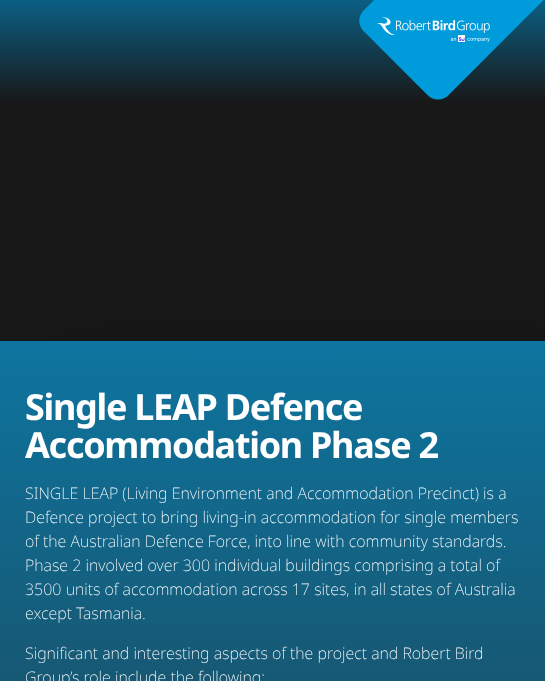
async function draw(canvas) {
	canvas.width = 545;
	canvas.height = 681;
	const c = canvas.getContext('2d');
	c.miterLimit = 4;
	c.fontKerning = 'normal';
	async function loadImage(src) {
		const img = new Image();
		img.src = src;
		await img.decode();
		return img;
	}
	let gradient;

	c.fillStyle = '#181818';
	c.fillRect(0, 0, 545, 681);
	gradient = c.createLinearGradient(273, 103, 273, 0);
	gradient.addColorStop(0, '#181818');
	gradient.addColorStop(1, '#0b5f83');
	c.fillStyle = gradient;
	c.fillRect(0, 0, 545, 101);
	c.drawImage(await loadImage('img1.png'), 359, 0, 185, 100);
	c.fillStyle = '#000000a6';
	c.filter = 'blur(50px)';
	c.beginPath();
	c.rect(44, 396, 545, 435);
	c.fill();
	c.filter = 'none';
	gradient = c.createLinearGradient(272, 341, 273, 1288);
	gradient.addColorStop(0, '#0e75a0');
	gradient.addColorStop(1, '#252525');
	c.fillStyle = gradient;
	c.fillRect(0, 341, 545, 340);
	c.letterSpacing = '-1.3px';
	c.font = 'bold 36px Noto Sans';
	c.fillStyle = '#fff';
	c.fillText('Single LEAP Defence', 25, 420);
	c.fillText('Accommodation Phase 2', 25, 458);
	c.letterSpacing = '0px';
	c.font = '200 16px Noto Sans';
	for (const [text, x, y] of [
		['SINGLE LEAP (Living Environment and Accommodation Precinct) is a', 25, 499],
		['Defence project to bring living-in accommodation for single members', 25, 523],
		['of the Australian Defence Force, into line with community standards.', 25, 547],
		['Phase 2 involved over 300 individual buildings comprising a total of', 25, 571],
		['3500 units of accommodation across 17 sites, in all states of Australia', 25, 595],
		['except Tasmania.', 25, 619],
		['Significant and interesting aspects of the project and Robert Bird', 25, 659],
		['Group’s role include the following:', 25, 683],
	]) {
		c.fillText(text, x, y);
	}
}

draw(document.querySelector('canvas'));
